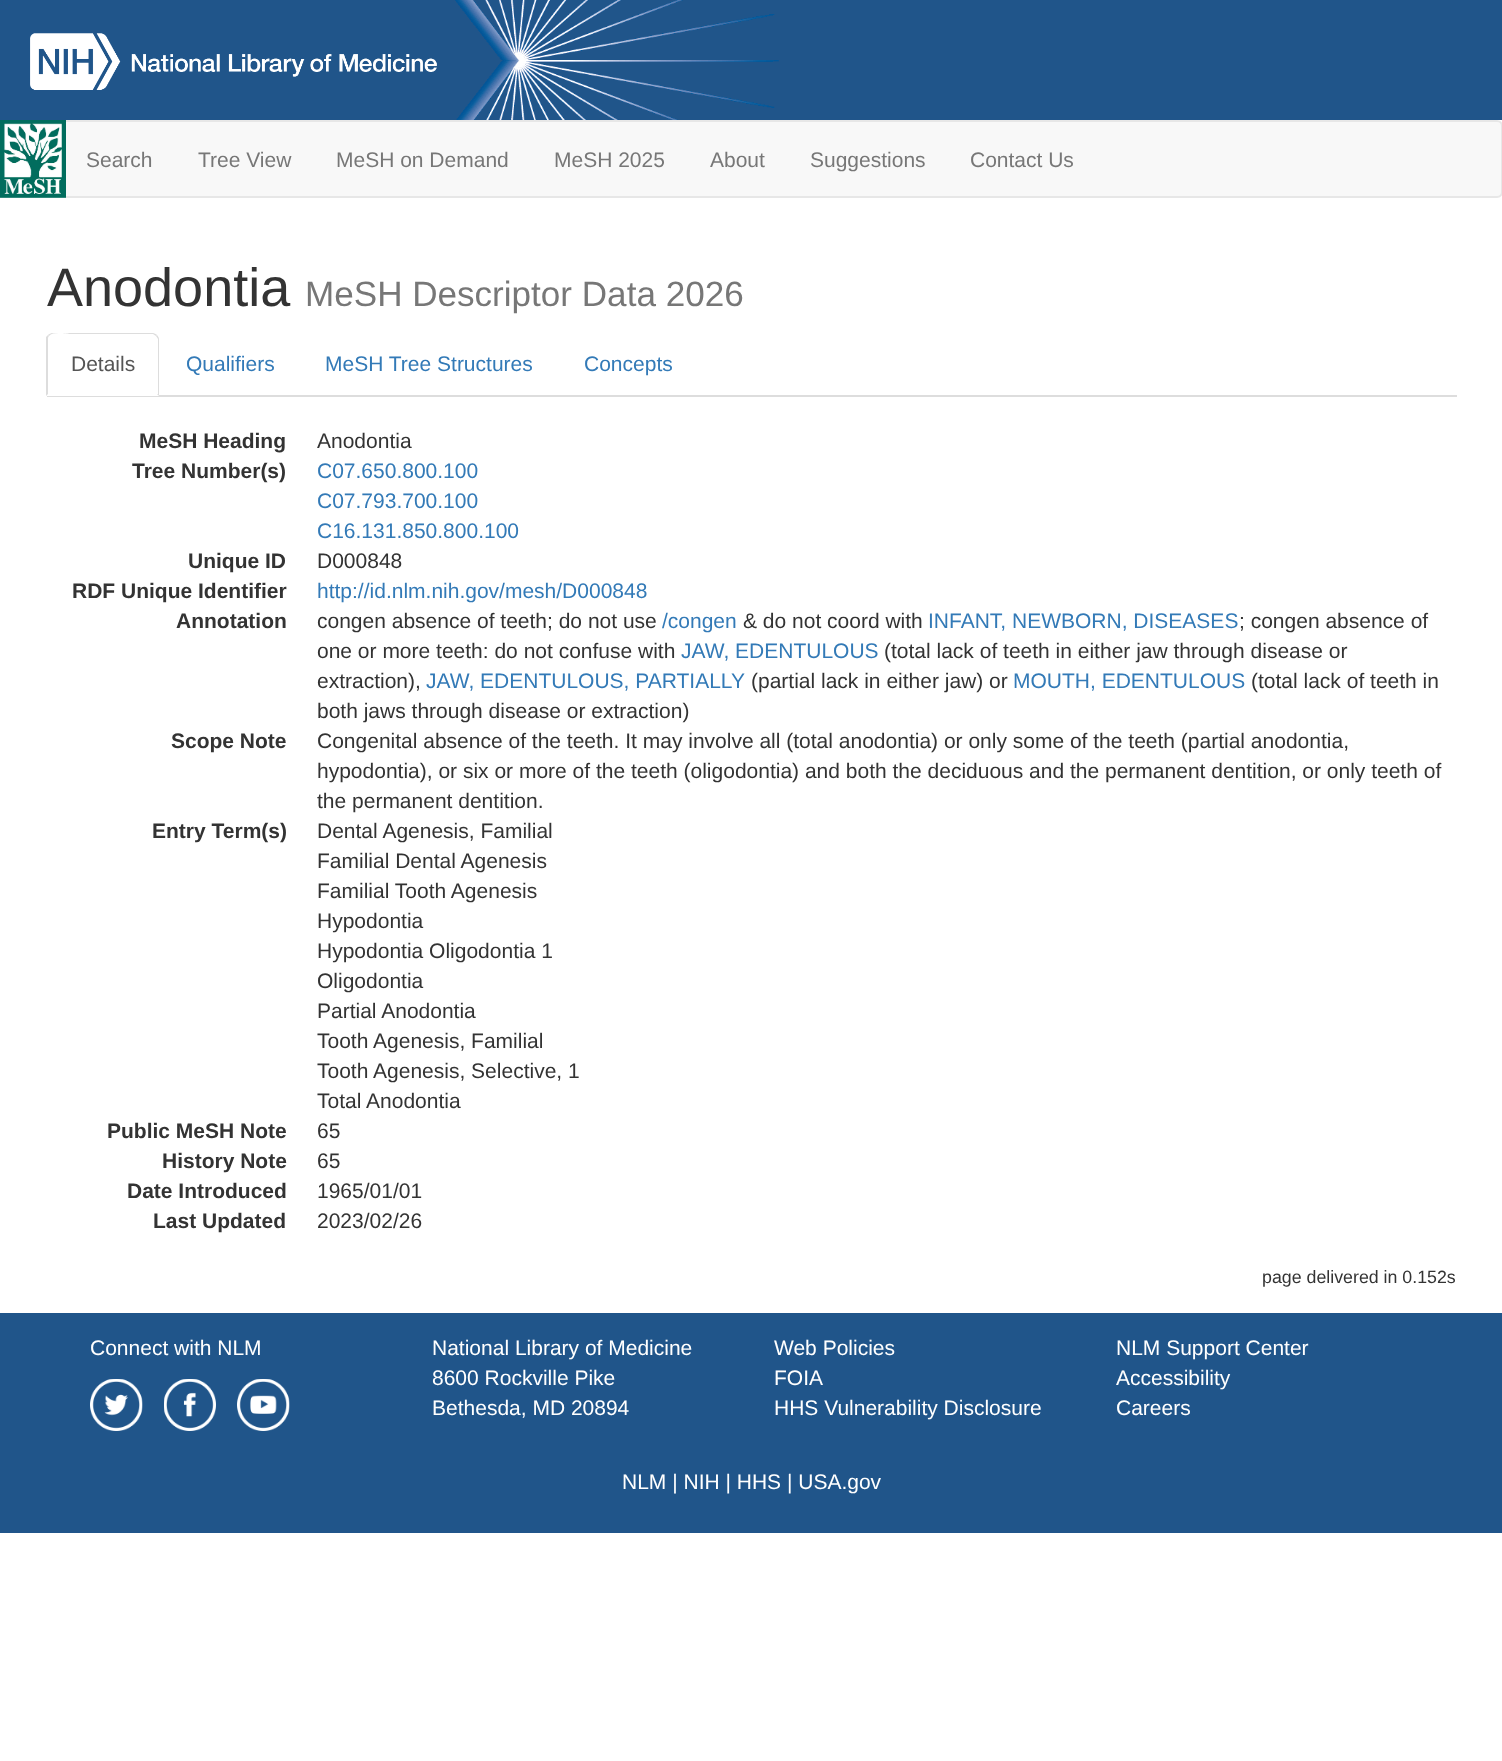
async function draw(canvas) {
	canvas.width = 1502;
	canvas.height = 1761;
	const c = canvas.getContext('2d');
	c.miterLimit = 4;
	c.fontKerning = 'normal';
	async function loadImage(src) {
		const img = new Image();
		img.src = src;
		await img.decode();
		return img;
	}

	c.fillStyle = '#fff';
	c.fillRect(0, 0, 1502, 1761);
	c.fillStyle = '#20558a';
	c.fillRect(0, 0, 1502, 120);
	c.drawImage(await loadImage('img1.png'), 455, 0, 324, 120);
	c.drawImage(await loadImage('img2.png'), 30, 33, 407, 57);
	c.fillStyle = '#f8f8f8';
	c.beginPath();
	c.roundRect(1, 121, 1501, 76, 5);
	c.fill();
	c.strokeStyle = '#e7e7e7';
	c.lineWidth = 2;
	c.stroke();
	c.drawImage(await loadImage('img3.png'), 0, 120, 66, 78);
	c.font = '21px Liberation Sans';
	c.fillStyle = '#777';
	for (const [text, x, y] of [
		['Search', 86, 167],
		['Tree View', 198, 167],
		['MeSH on Demand', 336, 167],
		['MeSH 2025', 554, 167],
		['About', 710, 167],
		['Suggestions', 810, 167],
		['Contact Us', 970, 167],
	]) {
		c.fillText(text, x, y);
	}
	c.font = '54px Liberation Sans';
	c.fillStyle = '#333';
	c.fillText('Anodontia', 47, 306);
	c.font = '35.1px Liberation Sans';
	c.fillStyle = '#777';
	c.fillText('MeSH Descriptor Data 2026', 305, 306);
	c.fillStyle = '#ddd';
	c.fillRect(47, 395, 1410, 2);
	c.fillStyle = '#fff';
	c.beginPath();
	c.roundRect(47, 333, 112, 63, [6, 6, 0, 0]);
	c.fill();
	c.fillStyle = '#ddd';
	c.beginPath();
	c.moveTo(52, 333);
	c.bezierCurveTo(51, 333, 49, 334, 48, 335);
	c.lineTo(49, 336);
	c.bezierCurveTo(53, 331, 68, 334, 69, 334);
	c.lineTo(153, 334);
	c.lineTo(156, 336);
	c.lineTo(157, 335);
	c.bezierCurveTo(156, 334, 154, 333, 153, 333);
	c.closePath();
	c.fill();
	c.beginPath();
	c.moveTo(159, 396);
	c.lineTo(159, 339);
	c.bezierCurveTo(159, 338, 158, 336, 157, 335);
	c.lineTo(156, 336);
	c.lineTo(158, 339);
	c.lineTo(158, 394);
	c.lineTo(157, 394);
	c.closePath();
	c.fill();
	c.beginPath();
	c.moveTo(46, 396);
	c.lineTo(46, 337);
	c.lineTo(48, 335);
	c.lineTo(49, 336);
	c.bezierCurveTo(48, 337, 48, 338, 48, 339);
	c.lineTo(48, 394);
	c.closePath();
	c.fill();
	c.font = '21px Liberation Sans';
	c.fillStyle = '#555';
	c.fillText('Details', 71, 371);
	c.fillStyle = '#337ab7';
	for (const [text, x, y] of [
		['Qualifiers', 186, 371],
		['MeSH Tree Structures', 325, 371],
		['Concepts', 584, 371],
	]) {
		c.fillText(text, x, y);
	}
	c.font = 'bold 21px Liberation Sans';
	c.fillStyle = '#333';
	c.fillText('MeSH Heading', 139, 448);
	c.font = '21px Liberation Sans';
	c.fillText('Anodontia', 317, 448);
	c.font = 'bold 21px Liberation Sans';
	c.fillText('Tree Number(s)', 132, 478);
	c.font = '21px Liberation Sans';
	c.fillStyle = '#337ab7';
	for (const [text, x, y] of [
		['C07.650.800.100', 317, 478],
		['C07.793.700.100', 317, 508],
		['C16.131.850.800.100', 317, 538],
	]) {
		c.fillText(text, x, y);
	}
	c.font = 'bold 21px Liberation Sans';
	c.fillStyle = '#333';
	c.fillText('Unique ID', 188, 568);
	c.font = '21px Liberation Sans';
	c.fillText('D000848', 317, 568);
	c.font = 'bold 21px Liberation Sans';
	c.fillText('RDF Unique Identifier', 72, 598);
	c.font = '21px Liberation Sans';
	c.fillStyle = '#337ab7';
	c.fillText('http://id.nlm.nih.gov/mesh/D000848', 317, 598);
	c.font = 'bold 21px Liberation Sans';
	c.fillStyle = '#333';
	c.fillText('Annotation', 176, 628);
	c.font = '21px Liberation Sans';
	c.fillText('congen absence of teeth; do not use', 317, 628);
	c.fillStyle = '#337ab7';
	c.fillText('/‌congen', 662, 628);
	c.fillStyle = '#333';
	c.fillText('& do not coord with', 743, 628);
	c.fillStyle = '#337ab7';
	c.fillText('INFANT, NEWBORN, DISEASES', 928, 628);
	c.fillStyle = '#333';
	c.fillText('; congen absence of', 1239, 628);
	c.fillText('one or more teeth: do not confuse with', 317, 658);
	c.fillStyle = '#337ab7';
	c.fillText('JAW, EDENTULOUS', 681, 658);
	c.fillStyle = '#333';
	c.fillText('(total lack of teeth in either jaw through disease or', 884, 658);
	c.fillText('extraction),', 317, 688);
	c.fillStyle = '#337ab7';
	c.fillText('JAW, EDENTULOUS, PARTIALLY', 426, 688);
	c.fillStyle = '#333';
	c.fillText('(partial lack in either jaw) or', 751, 688);
	c.fillStyle = '#337ab7';
	c.fillText('MOUTH, EDENTULOUS', 1013, 688);
	c.fillStyle = '#333';
	c.fillText('(total lack of teeth in', 1251, 688);
	c.fillText('both jaws through disease or extraction)', 317, 718);
	c.font = 'bold 21px Liberation Sans';
	c.fillText('Scope Note', 171, 748);
	c.font = '21px Liberation Sans';
	for (const [text, x, y] of [
		['Congenital absence of the teeth. It may involve all (total anodontia) or only some of the teeth (partial anodontia,', 317, 748],
		['hypodontia), or six or more of the teeth (oligodontia) and both the deciduous and the permanent dentition, or only teeth of', 317, 778],
		['the permanent dentition.', 317, 808],
	]) {
		c.fillText(text, x, y);
	}
	c.font = 'bold 21px Liberation Sans';
	c.fillText('Entry Term(s)', 152, 838);
	c.font = '21px Liberation Sans';
	for (const [text, x, y] of [
		['Dental Agenesis, Familial', 317, 838],
		['Familial Dental Agenesis', 317, 868],
		['Familial Tooth Agenesis', 317, 898],
		['Hypodontia', 317, 928],
		['Hypodontia Oligodontia 1', 317, 958],
		['Oligodontia', 317, 988],
		['Partial Anodontia', 317, 1018],
		['Tooth Agenesis, Familial', 317, 1048],
		['Tooth Agenesis, Selective, 1', 317, 1078],
		['Total Anodontia', 317, 1108],
	]) {
		c.fillText(text, x, y);
	}
	c.font = 'bold 21px Liberation Sans';
	c.fillText('Public MeSH Note', 107, 1138);
	c.font = '21px Liberation Sans';
	c.fillText('65', 317, 1138);
	c.font = 'bold 21px Liberation Sans';
	c.fillText('History Note', 162, 1168);
	c.font = '21px Liberation Sans';
	c.fillText('65', 317, 1168);
	c.font = 'bold 21px Liberation Sans';
	c.fillText('Date Introduced', 127, 1198);
	c.font = '21px Liberation Sans';
	c.fillText('1965/01/01', 317, 1198);
	c.font = 'bold 21px Liberation Sans';
	c.fillText('Last Updated', 153, 1228);
	c.font = '21px Liberation Sans';
	c.fillText('2023/02/26', 317, 1228);
	c.font = '17.8px Liberation Sans';
	c.fillText('page delivered in 0.152s', 1262, 1283);
	c.fillStyle = '#20558a';
	c.fillRect(0, 1313, 1502, 220);
	c.font = '21px Liberation Sans';
	c.fillStyle = '#fff';
	c.fillText('Connect with NLM', 90, 1355);
	c.drawImage(await loadImage('img4.png'), 90, 1379, 53, 52);
	c.drawImage(await loadImage('img5.png'), 164, 1379, 52, 52);
	c.drawImage(await loadImage('img6.png'), 237, 1379, 53, 52);
	for (const [text, x, y] of [
		['National Library of Medicine', 432, 1355],
		['8600 Rockville Pike', 432, 1385],
		['Bethesda, MD 20894', 432, 1415],
		['Web Policies', 774, 1355],
		['FOIA', 774, 1385],
		['HHS Vulnerability Disclosure', 774, 1415],
		['NLM Support Center', 1116, 1355],
		['Accessibility', 1116, 1385],
		['Careers', 1116, 1415],
		['NLM | NIH | HHS | USA.gov', 622, 1489],
	]) {
		c.fillText(text, x, y);
	}
}

draw(document.querySelector('canvas'));
